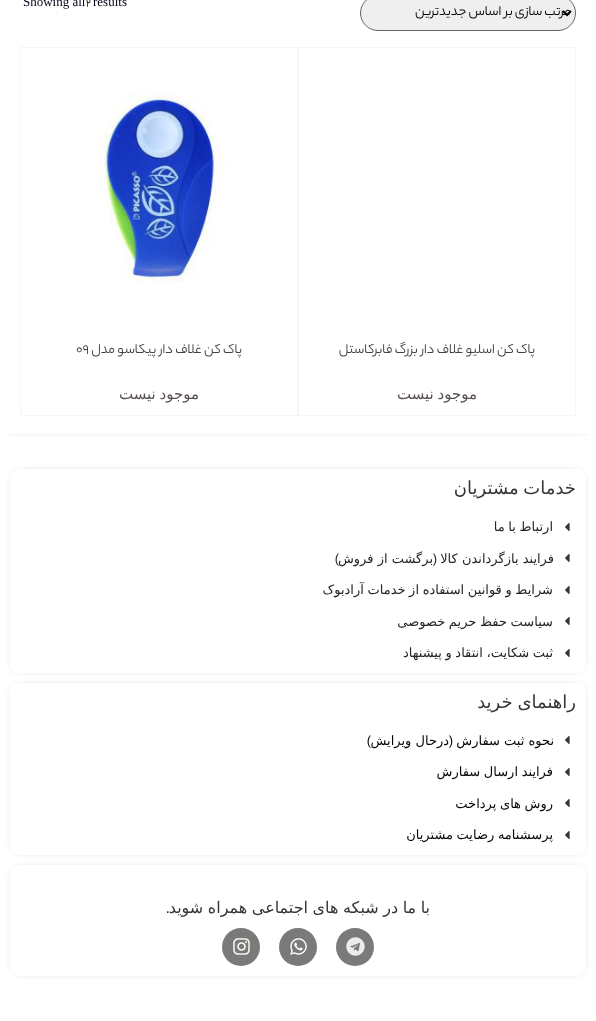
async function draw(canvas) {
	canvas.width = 596;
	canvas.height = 1021;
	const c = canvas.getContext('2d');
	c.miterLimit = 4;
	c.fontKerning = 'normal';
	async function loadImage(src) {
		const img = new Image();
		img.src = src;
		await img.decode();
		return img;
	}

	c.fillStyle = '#fff';
	c.fillRect(0, 0, 596, 1021);
	c.font = '13px Liberation Serif';
	c.fillStyle = '#020319';
	c.fillText('results', 93, 6);
	c.font = '13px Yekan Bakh';
	c.fillText('2', 86, 6);
	c.font = '13px Liberation Serif';
	c.fillText('Showing all', 23, 6);
	c.fillStyle = '#efefef';
	c.beginPath();
	c.roundRect(360.5, -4.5, 215, 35, 17.5);
	c.fill();
	c.strokeStyle = '#666';
	c.stroke();
	c.beginPath();
	c.moveTo(563, 11);
	c.lineTo(567, 15);
	c.lineTo(571, 11);
	c.strokeStyle = '#000';
	c.lineWidth = 2;
	c.stroke();
	c.direction = 'rtl';
	c.font = '16px Yekan Bakh';
	c.fillStyle = '#000';
	c.fillText('مرتب سازی بر اساس جدیدترین', 571, 15);
	c.strokeStyle = '#f6f6f6';
	c.lineWidth = 1;
	c.strokeRect(298.5, 47.5, 277, 368);
	c.fillStyle = '#414141';
	c.fillText('پاک کن اسلیو غلاف دار بزرگ فابرکاستل', 535, 353);
	c.wordSpacing = '-1px';
	c.font = '15px DejaVu Sans';
	c.fillStyle = '#585050';
	c.fillText('موجود نیست', 477, 399);
	c.strokeRect(20.5, 47.5, 277, 368);
	c.drawImage(await loadImage('img1.png'), 95, 93, 131, 189);
	c.wordSpacing = '0px';
	c.font = '16px Yekan Bakh';
	c.fillStyle = '#414141';
	c.fillText('پاک کن غلاف دار پیکاسو مدل', 242, 353);
	c.direction = 'ltr';
	c.fillText('09', 76, 353);
	c.wordSpacing = '-1px';
	c.direction = 'rtl';
	c.font = '15px DejaVu Sans';
	c.fillStyle = '#585050';
	c.fillText('موجود نیست', 199, 399);
	c.save();
	c.beginPath();
	c.rect(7, 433, 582, 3);
	c.clip();
	c.fillStyle = '#00000080';
	c.filter = 'blur(5px)';
	c.beginPath();
	c.rect(8, 442, 580, 534);
	c.fill();
	c.filter = 'none';
	c.restore();
	c.save();
	c.beginPath();
	c.moveTo(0, 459);
	c.lineTo(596, 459);
	c.lineTo(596, 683);
	c.lineTo(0, 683);
	c.closePath();
	c.moveTo(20, 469);
	c.lineTo(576, 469);
	c.bezierCurveTo(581.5, 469, 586, 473.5, 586, 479);
	c.lineTo(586, 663);
	c.bezierCurveTo(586, 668.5, 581.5, 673, 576, 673);
	c.lineTo(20, 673);
	c.bezierCurveTo(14.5, 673, 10, 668.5, 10, 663);
	c.lineTo(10, 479);
	c.bezierCurveTo(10, 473.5, 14.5, 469, 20, 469);
	c.closePath();
	c.clip('evenodd');
	c.fillStyle = '#00000080';
	c.filter = 'blur(5px)';
	c.beginPath();
	c.roundRect(16, 475, 564, 192, 4);
	c.fill();
	c.filter = 'none';
	c.restore();
	c.font = '18px DejaVu Sans';
	c.fillStyle = '#353535';
	c.fillText('خدمات مشتریان', 576, 494);
	c.drawImage(await loadImage('img2.png'), 565, 523, 5, 8);
	c.wordSpacing = '-0.5px';
	c.font = '13px DejaVu Sans';
	c.fillStyle = '#292424';
	c.fillText('ارتباط با ما', 553, 531);
	c.drawImage(await loadImage('img2.png'), 565, 554, 5, 8);
	c.wordSpacing = '0px';
	c.fillText('فرایند بازگرداندن کالا', 554, 563);
	c.font = '13px Liberation Sans';
	c.fillText('(', 437, 563);
	c.font = '13px DejaVu Sans';
	c.fillText('برگشت از فروش', 433, 563);
	c.font = '13px Liberation Sans';
	c.fillText(')', 339, 563);
	c.drawImage(await loadImage('img2.png'), 565, 586, 5, 8);
	c.wordSpacing = '-0.5px';
	c.font = '13px DejaVu Sans';
	c.fillText('شرایط و قوانین استفاده از خدمات آرادبوک', 553, 594);
	c.drawImage(await loadImage('img2.png'), 565, 617, 5, 8);
	c.fillText('سیاست حفظ حریم خصوصی', 553, 626);
	c.drawImage(await loadImage('img2.png'), 565, 649, 5, 8);
	c.fillText('ثبت شکایت، انتقاد و پیشنهاد', 553, 657);
	c.save();
	c.beginPath();
	c.moveTo(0, 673);
	c.lineTo(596, 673);
	c.lineTo(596, 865);
	c.lineTo(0, 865);
	c.closePath();
	c.moveTo(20, 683);
	c.lineTo(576, 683);
	c.bezierCurveTo(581.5, 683, 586, 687.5, 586, 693);
	c.lineTo(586, 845);
	c.bezierCurveTo(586, 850.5, 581.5, 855, 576, 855);
	c.lineTo(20, 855);
	c.bezierCurveTo(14.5, 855, 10, 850.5, 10, 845);
	c.lineTo(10, 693);
	c.bezierCurveTo(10, 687.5, 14.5, 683, 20, 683);
	c.closePath();
	c.clip('evenodd');
	c.fillStyle = '#00000080';
	c.filter = 'blur(5px)';
	c.beginPath();
	c.roundRect(16, 689, 564, 160, 4);
	c.fill();
	c.filter = 'none';
	c.restore();
	c.wordSpacing = '-1px';
	c.font = '18px DejaVu Sans';
	c.fillStyle = '#353535';
	c.fillText('راهنمای خرید', 576, 708);
	c.drawImage(await loadImage('img2.png'), 565, 736, 5, 8);
	c.wordSpacing = '0px';
	c.font = '13px DejaVu Sans';
	c.fillStyle = '#070707';
	c.fillText('نحوه ثبت سفارش', 554, 745);
	c.font = '13px Liberation Sans';
	c.fillText('(', 453, 745);
	c.font = '13px DejaVu Sans';
	c.fillText('درحال ویرایش', 449, 745);
	c.font = '13px Liberation Sans';
	c.fillText(')', 371, 745);
	c.drawImage(await loadImage('img2.png'), 565, 768, 5, 8);
	c.wordSpacing = '-0.5px';
	c.font = '13px DejaVu Sans';
	c.fillText('فرایند ارسال سفارش', 553, 776);
	c.drawImage(await loadImage('img2.png'), 565, 799, 5, 8);
	c.fillText('روش های پرداخت', 553, 808);
	c.drawImage(await loadImage('img2.png'), 565, 831, 5, 8);
	c.fillText('پرسشنامه رضایت مشتریان', 553, 839);
	c.save();
	c.beginPath();
	c.moveTo(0, 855);
	c.lineTo(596, 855);
	c.lineTo(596, 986);
	c.lineTo(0, 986);
	c.closePath();
	c.moveTo(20, 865);
	c.lineTo(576, 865);
	c.bezierCurveTo(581.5, 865, 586, 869.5, 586, 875);
	c.lineTo(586, 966);
	c.bezierCurveTo(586, 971.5, 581.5, 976, 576, 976);
	c.lineTo(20, 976);
	c.bezierCurveTo(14.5, 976, 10, 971.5, 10, 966);
	c.lineTo(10, 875);
	c.bezierCurveTo(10, 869.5, 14.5, 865, 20, 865);
	c.closePath();
	c.clip('evenodd');
	c.fillStyle = '#00000080';
	c.filter = 'blur(5px)';
	c.beginPath();
	c.roundRect(16, 871, 564, 99, 4);
	c.fill();
	c.filter = 'none';
	c.restore();
	c.font = '16px DejaVu Sans';
	c.fillStyle = '#353535';
	c.fillText('با ما در شبکه های اجتماعی همراه شوید', 430, 913);
	c.wordSpacing = '0px';
	c.font = '16px Liberation Sans';
	c.fillText('.', 170, 913);
	c.fillStyle = '#7a7a7a';
	c.beginPath();
	c.arc(355, 947, 19, 0, 2 * Math.PI);
	c.fill();
	c.drawImage(await loadImage('img3.png'), 346, 937, 19, 19);
	c.beginPath();
	c.arc(298, 947, 19, 0, 2 * Math.PI);
	c.fill();
	c.drawImage(await loadImage('img4.png'), 290, 938, 17, 17);
	c.beginPath();
	c.arc(241, 947, 19, 0, 2 * Math.PI);
	c.fill();
	c.drawImage(await loadImage('img5.png'), 233, 938, 17, 17);
}

draw(document.querySelector('canvas'));
